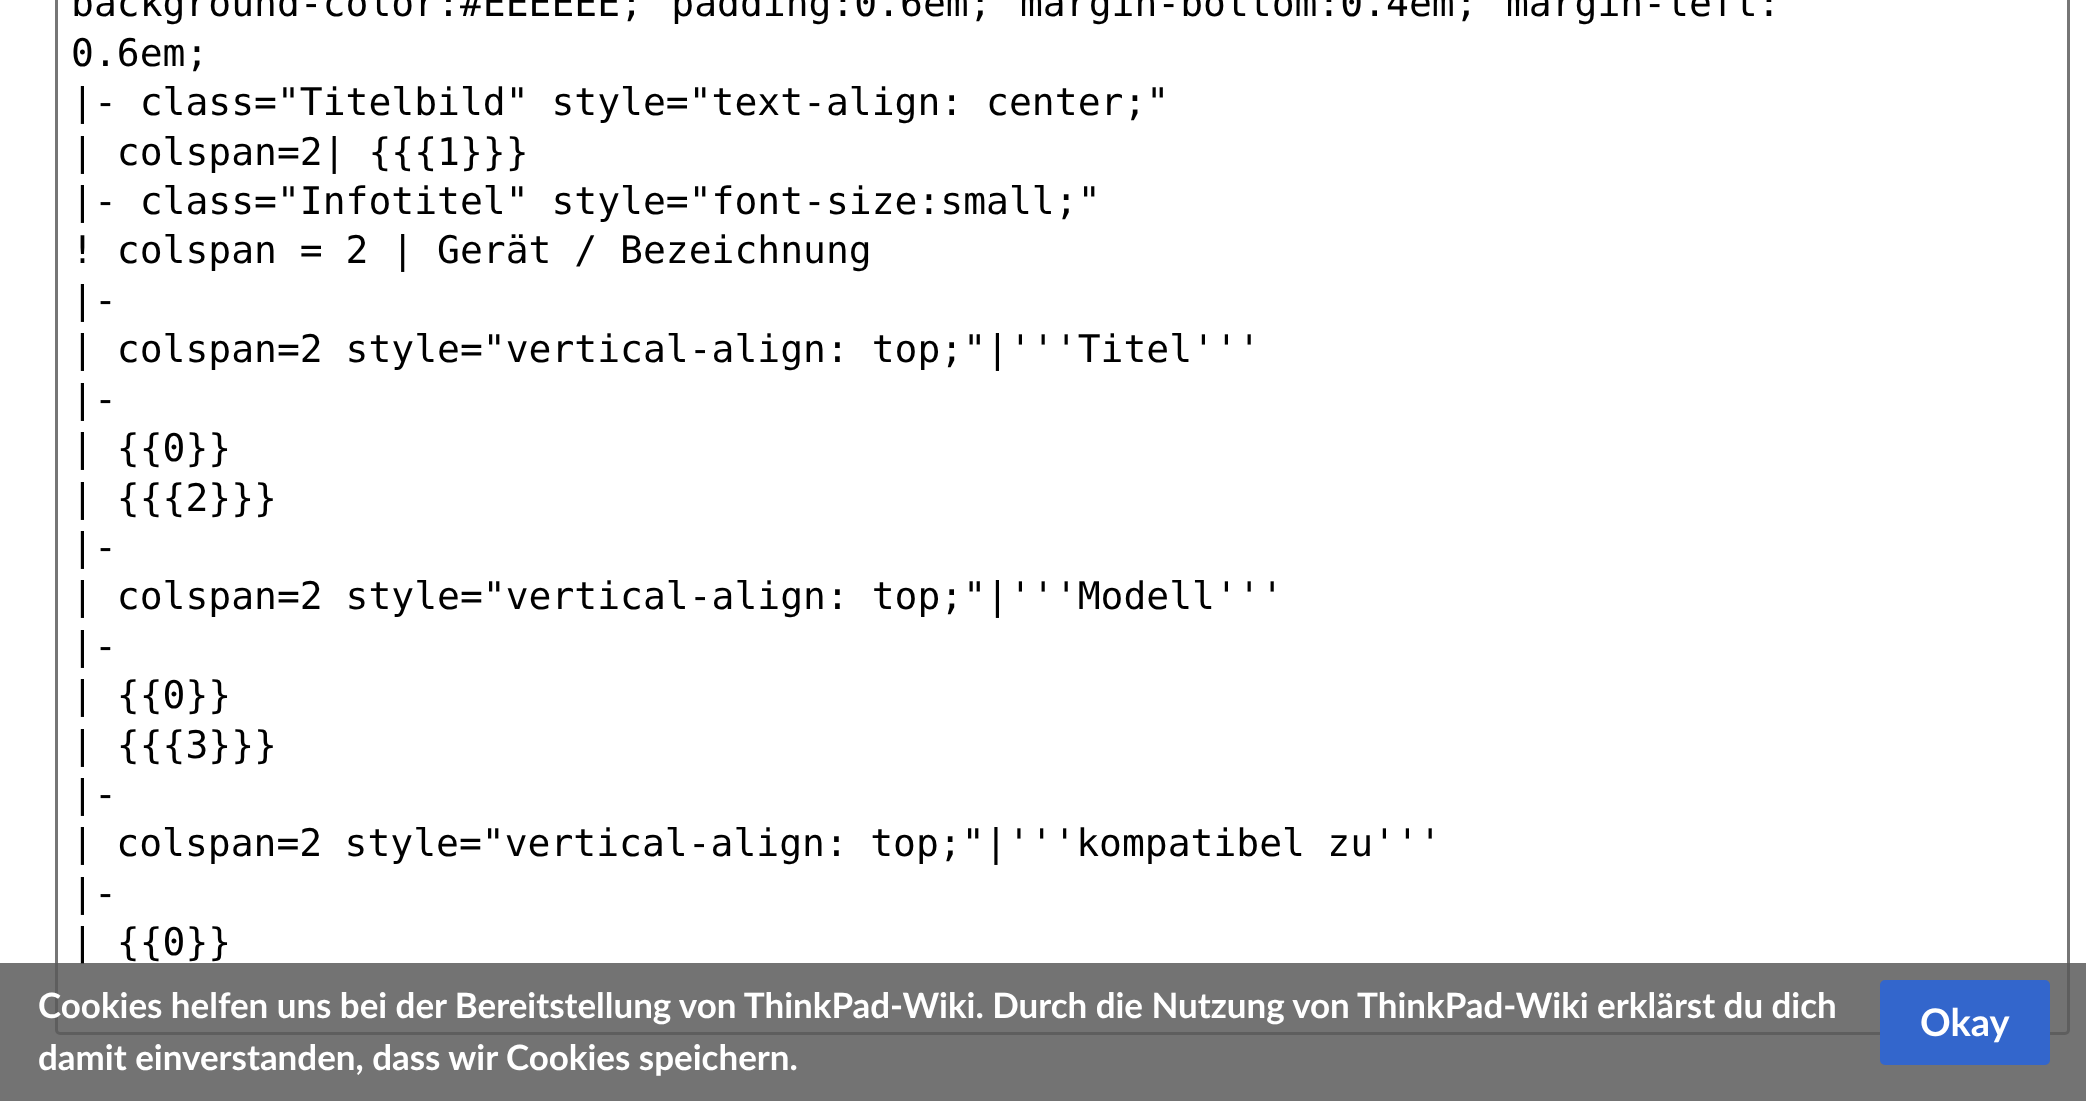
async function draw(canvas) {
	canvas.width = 2086;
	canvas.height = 1101;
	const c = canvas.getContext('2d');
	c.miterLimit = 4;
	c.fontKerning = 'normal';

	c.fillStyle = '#fff';
	c.fillRect(0, 0, 2086, 1101);
	c.beginPath();
	c.roundRect(56.5, -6.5, 2012, 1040, 3.5);
	c.strokeStyle = '#767676';
	c.lineWidth = 3;
	c.stroke();
	c.wordSpacing = '5.5px';
	c.font = '38px DejaVu Sans Mono';
	c.fillStyle = '#000';
	c.fillText('background-color:#EEEEEE; padding:0.6em; margin-bottom:0.4em; margin-left:', 71, 16);
	c.wordSpacing = '0px';
	for (const [text, x, y] of [
		['0.6em;', 71, 66],
		['|- class="Titelbild" style="text-align: center;"', 71, 115],
		['| colspan=2| {{{1}}}', 71, 165],
		['|- class="Infotitel" style="font-size:small;"', 71, 214],
		['! colspan = 2 | Gerät / Bezeichnung', 71, 263],
		['|-', 71, 313],
		['| colspan=2 style="vertical-align: top;"|\'\'\'Titel\'\'\'', 71, 362],
		['|-', 71, 412],
		['| {{0}}', 71, 461],
		['| {{{2}}}', 71, 511],
		['|-', 71, 560],
		['| colspan=2 style="vertical-align: top;"|\'\'\'Modell\'\'\'', 71, 609],
		['|-', 71, 659],
		['| {{0}}', 71, 708],
		['| {{{3}}}', 71, 758],
		['|-', 71, 807],
	]) {
		c.fillText(text, x, y);
	}
	c.wordSpacing = '-0.5px';
	c.fillText('| colspan=2 style="vertical-align: top;"|\'\'\'kompatibel zu\'\'\'', 71, 856);
	c.wordSpacing = '0px';
	c.fillText('|-', 71, 906);
	c.fillText('| {{0}}', 71, 955);
	c.fillStyle = '#5a5a5ad9';
	c.fillRect(0, 963, 2086, 138);
	c.wordSpacing = '-0.1px';
	c.font = 'bold 34.95px Lato';
	c.fillStyle = '#fff';
	c.fillText('Cookies helfen uns bei der Bereitstellung von ThinkPad-Wiki. Durch die Nutzung von ThinkPad-Wiki erklärst du dich', 38, 1018);
	c.wordSpacing = '0px';
	c.fillText('damit einverstanden, dass wir Cookies speichern.', 38, 1070);
	c.fillStyle = '#36c';
	c.beginPath();
	c.roundRect(1881.5, 981.5, 167, 82, 3.5);
	c.fill();
	c.strokeStyle = '#36c';
	c.stroke();
	c.font = 'bold 38px Lato';
	c.fillStyle = '#fff';
	c.fillText('Okay', 1920, 1036);
}

draw(document.querySelector('canvas'));
